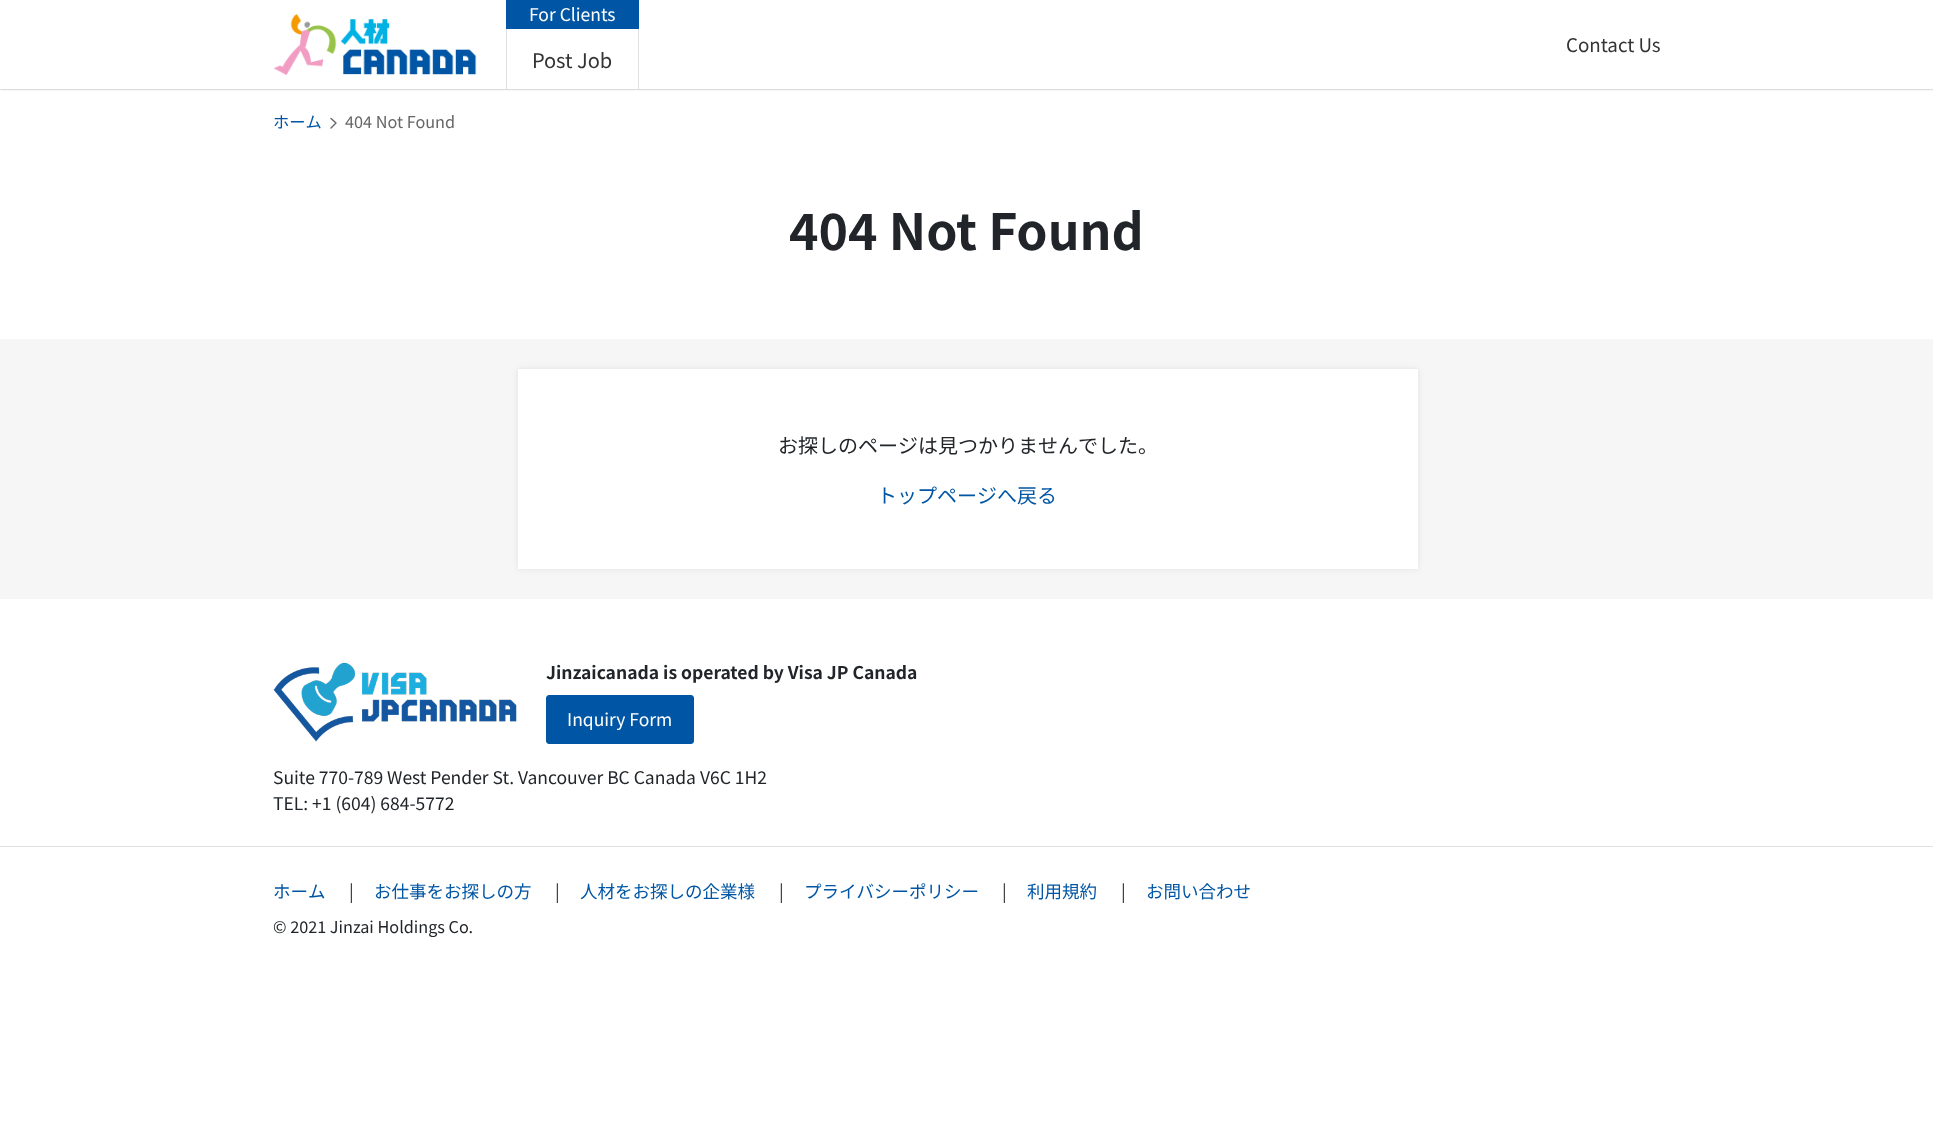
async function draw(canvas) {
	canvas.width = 1933;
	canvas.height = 1142;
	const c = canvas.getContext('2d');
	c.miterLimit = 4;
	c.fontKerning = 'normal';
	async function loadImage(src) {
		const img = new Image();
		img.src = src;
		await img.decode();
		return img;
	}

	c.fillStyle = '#fff';
	c.fillRect(0, 0, 1933, 1142);
	c.fillStyle = '#00000066';
	c.filter = 'blur(1px)';
	c.beginPath();
	c.rect(0, 0, 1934, 89);
	c.fill();
	c.filter = 'none';
	c.fillStyle = '#fff';
	c.fillRect(0, 0, 1933, 89);
	c.drawImage(await loadImage('img1.png'), 273, 13, 204, 62);
	c.fillStyle = '#0056a4';
	c.fillRect(506, 0, 133, 29);
	c.font = '17.5px Noto Sans JP';
	c.fillStyle = '#fff';
	c.fillText('For Clients', 529, 21);
	c.fillStyle = '#dfdfdf';
	c.fillRect(638, 29, 1, 60);
	c.fillRect(506, 29, 1, 60);
	c.font = '20px Noto Sans JP';
	c.fillStyle = '#333';
	c.fillText('Post Job', 532, 68);
	c.font = '18.75px Noto Sans JP';
	c.fillText('Contact Us', 1566, 52);
	c.font = '16.25px Noto Sans JP';
	c.fillStyle = '#0056a4';
	c.fillText('ホーム', 273, 128);
	c.beginPath();
	c.moveTo(331, 118.5);
	c.lineTo(336, 123);
	c.lineTo(331, 128);
	c.strokeStyle = '#666';
	c.lineWidth = 1.4;
	c.lineCap = 'round';
	c.lineJoin = 'round';
	c.stroke();
	c.fillStyle = '#666';
	c.fillText('404 Not Found', 345, 128);
	c.font = 'bold 50px Noto Sans JP';
	c.fillStyle = '#212529';
	c.fillText('404 Not Found', 789, 250);
	c.fillStyle = '#f6f6f6';
	c.fillRect(0, 339, 1933, 260);
	c.fillStyle = '#96969633';
	c.filter = 'blur(3px)';
	c.beginPath();
	c.rect(518, 369, 900, 200);
	c.fill();
	c.filter = 'none';
	c.fillStyle = '#fff';
	c.fillRect(518, 369, 900, 200);
	c.font = '20px Noto Sans JP';
	c.fillStyle = '#212529';
	c.fillText('お探しのページは見つかりませんでした。', 778, 453);
	c.fillStyle = '#0056a4';
	c.fillText('トップページへ戻る', 877, 503);
	c.drawImage(await loadImage('img2.png'), 273, 662, 244, 80);
	c.font = 'bold 17.5px Noto Sans JP';
	c.fillStyle = '#212529';
	c.fillText('Jinzaicanada is operated by Visa JP Canada', 546, 679);
	c.fillStyle = '#0056a4';
	c.beginPath();
	c.roundRect(546.5, 695.5, 147, 48, 2.5);
	c.fill();
	c.strokeStyle = '#0056a4';
	c.lineWidth = 1;
	c.lineJoin = 'miter';
	c.stroke();
	c.font = '17.5px Noto Sans JP';
	c.fillStyle = '#fff';
	c.fillText('Inquiry Form', 567, 726);
	c.fillStyle = '#212529';
	c.fillText('Suite 770-789 West Pender St. Vancouver BC Canada V6C 1H2', 273, 784);
	c.fillText('TEL: +1 (604) 684-5772', 273, 810);
	c.fillStyle = '#dfdfdf';
	c.fillRect(0, 846, 1933, 1);
	c.fillStyle = '#0056a4';
	c.fillText('ホーム', 273, 898);
	c.fillStyle = '#333';
	c.fillText('|', 349, 898);
	c.fillStyle = '#0056a4';
	c.fillText('お仕事をお探しの方', 374, 898);
	c.fillStyle = '#333';
	c.fillText('|', 555, 898);
	c.fillStyle = '#0056a4';
	c.fillText('人材をお探しの企業様', 580, 898);
	c.fillStyle = '#333';
	c.fillText('|', 779, 898);
	c.fillStyle = '#0056a4';
	c.fillText('プライバシーポリシー', 804, 898);
	c.fillStyle = '#333';
	c.fillText('|', 1002, 898);
	c.fillStyle = '#0056a4';
	c.fillText('利用規約', 1027, 898);
	c.fillStyle = '#333';
	c.fillText('|', 1121, 898);
	c.fillStyle = '#0056a4';
	c.fillText('お問い合わせ', 1146, 898);
	c.font = '16.25px Noto Sans JP';
	c.fillStyle = '#212529';
	c.fillText('© 2021 Jinzai Holdings Co.', 273, 933);
}

draw(document.querySelector('canvas'));
